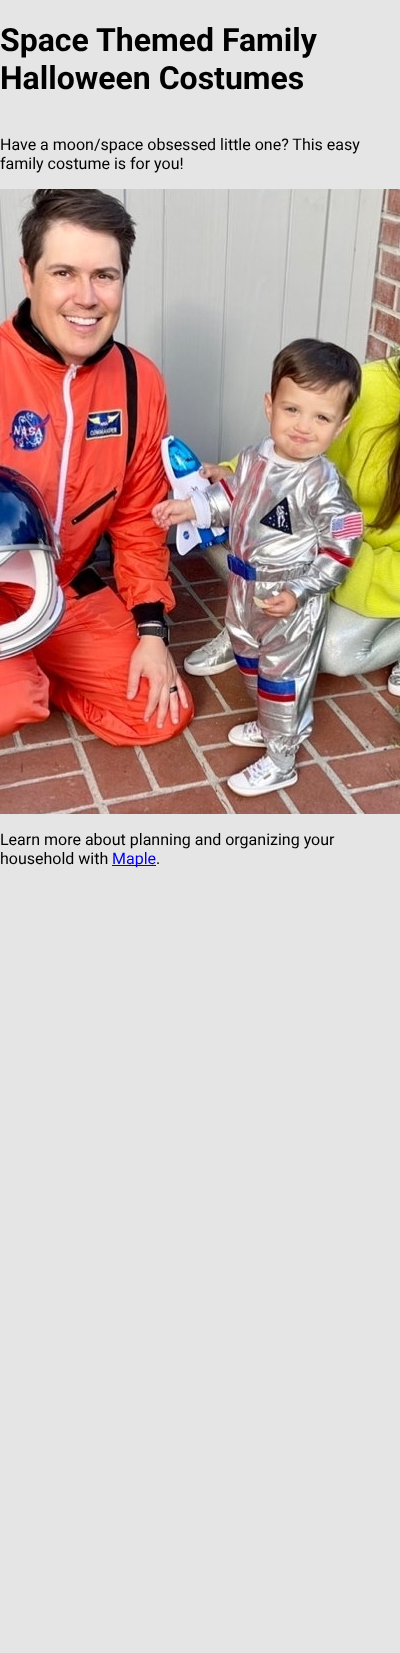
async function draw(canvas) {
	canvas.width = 400;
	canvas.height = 1653;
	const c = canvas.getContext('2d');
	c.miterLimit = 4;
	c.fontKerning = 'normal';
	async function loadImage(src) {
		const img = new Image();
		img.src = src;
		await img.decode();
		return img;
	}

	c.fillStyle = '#e5e5e5';
	c.fillRect(0, 0, 400, 1653);
	c.font = 'bold 32px Roboto';
	c.fillStyle = '#000';
	c.fillText('Space Themed Family', 0, 51);
	c.fillText('Halloween Costumes', 0, 89);
	c.font = '16px Roboto';
	c.fillText('Have a moon/space obsessed little one? This easy', 0, 150);
	c.fillText('family costume is for you!', 0, 169);
	c.drawImage(await loadImage('img1.png'), 0, 189, 400, 625);
	c.fillText('Learn more about planning and organizing your', 0, 845);
	c.fillText('household with', 0, 864);
	c.fillStyle = '#00e';
	c.fillRect(112, 865, 44, 1);
	c.fillText('Maple', 112, 864);
	c.fillStyle = '#000';
	c.fillText('.', 156, 864);
}

draw(document.querySelector('canvas'));
